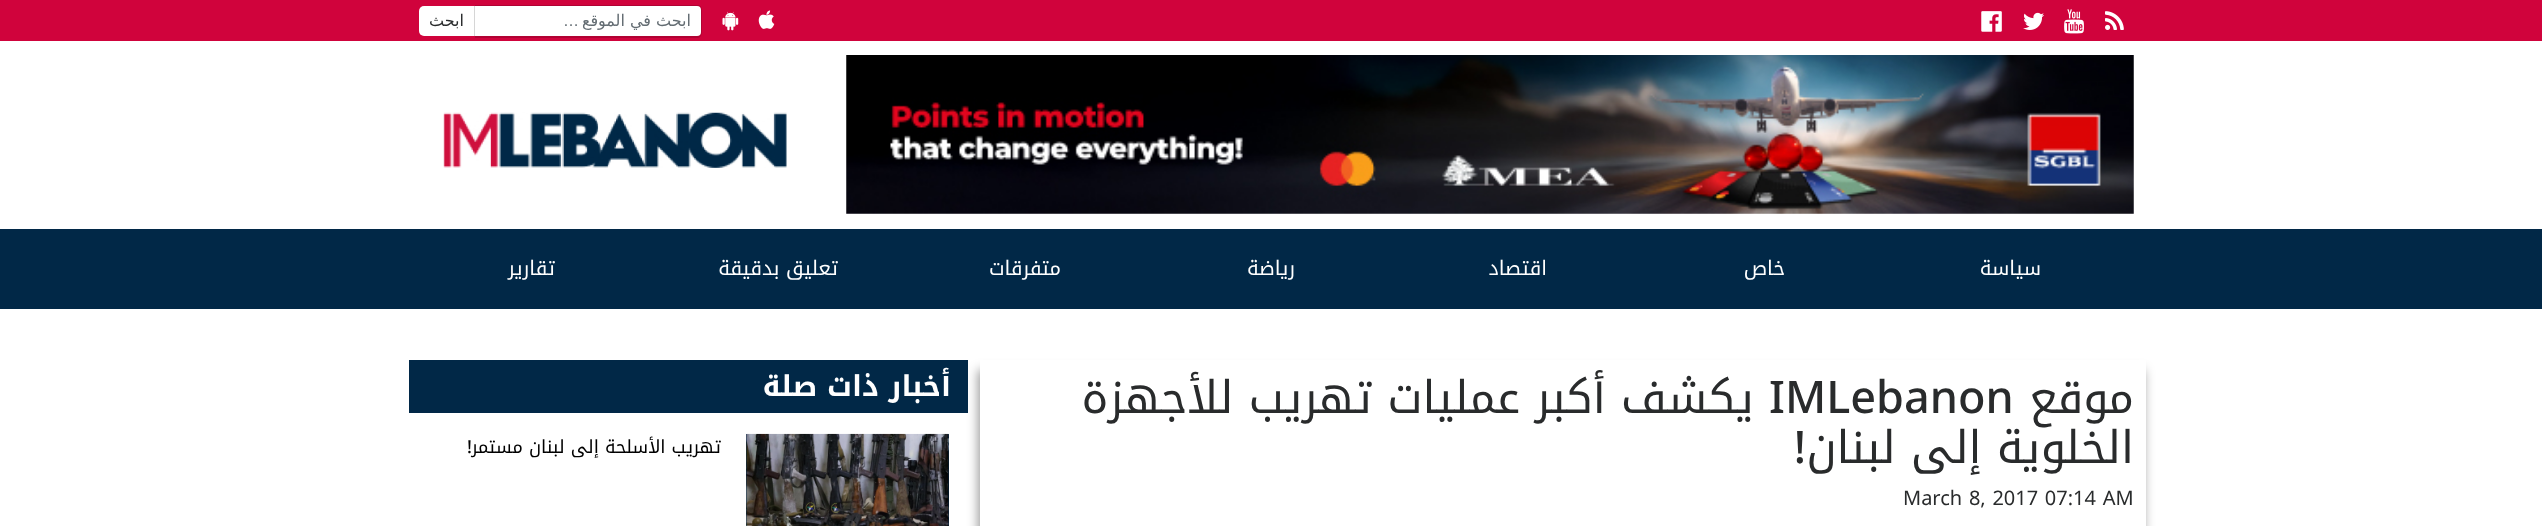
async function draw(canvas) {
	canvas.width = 2542;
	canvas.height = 526;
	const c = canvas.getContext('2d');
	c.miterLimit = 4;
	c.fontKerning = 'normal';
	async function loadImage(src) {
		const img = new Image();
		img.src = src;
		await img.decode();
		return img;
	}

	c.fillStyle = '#fff';
	c.fillRect(0, 0, 2542, 526);
	c.fillStyle = '#d0033c';
	c.fillRect(0, 0, 2542, 41);
	c.drawImage(await loadImage('img1.png'), 2105, 11, 19, 19);
	c.drawImage(await loadImage('img2.png'), 2064, 9, 20, 25);
	c.drawImage(await loadImage('img3.png'), 2023, 12, 21, 18);
	c.drawImage(await loadImage('img4.png'), 1981, 11, 21, 21);
	c.drawImage(await loadImage('img5.png'), 758, 10, 17, 19);
	c.drawImage(await loadImage('img6.png'), 722, 11, 17, 20);
	c.fillStyle = '#fff';
	c.beginPath();
	c.roundRect(475, 6, 226, 30, [0, 4, 4, 0]);
	c.fill();
	c.fillStyle = '#00000026';
	c.beginPath();
	c.moveTo(475, 5);
	c.lineTo(698, 5);
	c.bezierCurveTo(700, 5, 702, 7, 702, 10);
	c.lineTo(702, 32);
	c.bezierCurveTo(702, 35, 700, 38, 698, 38);
	c.lineTo(475, 38);
	c.closePath();
	c.moveTo(475, 6);
	c.lineTo(698, 6);
	c.bezierCurveTo(700, 6, 701, 8, 701, 10);
	c.lineTo(701, 32);
	c.bezierCurveTo(701, 35, 700, 36, 698, 36);
	c.lineTo(475, 36);
	c.closePath();
	c.fill('evenodd');
	c.direction = 'rtl';
	c.font = '16px DejaVu Sans';
	c.fillStyle = '#636c72';
	c.fillText('ابحث في الموقع', 691, 26);
	c.font = '16px Liberation Sans';
	c.fillText('…', 579, 26);
	c.fillStyle = '#fff';
	c.beginPath();
	c.roundRect(419, 6, 56, 30, [5, 0, 0, 5]);
	c.fill();
	c.fillStyle = '#d6d6d6';
	c.fillRect(474, 6, 1, 30);
	c.font = '16px DejaVu Sans';
	c.fillStyle = '#292b2c';
	c.fillText('ابحث', 464, 26);
	c.drawImage(await loadImage('img7.png'), 846, 55, 1288, 159);
	c.drawImage(await loadImage('img8.png'), 443, 112, 344, 56);
	c.fillStyle = '#012847';
	c.fillRect(0, 229, 2542, 80);
	c.font = '20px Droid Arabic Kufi';
	c.fillStyle = '#fff';
	for (const [text, x, y] of [
		['سياسة', 2041, 275],
		['خاص', 1785, 275],
		['اقتصاد', 1547, 275],
		['رياضة', 1295, 275],
		['متفرقات', 1061, 275],
		['تعليق بدقيقة', 838, 275],
		['تقارير', 555, 275],
	]) {
		c.fillText(text, x, y);
	}
	c.save();
	c.beginPath();
	c.moveTo(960, 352);
	c.lineTo(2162, 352);
	c.lineTo(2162, 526);
	c.lineTo(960, 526);
	c.closePath();
	c.moveTo(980, 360);
	c.lineTo(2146, 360);
	c.lineTo(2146, 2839);
	c.lineTo(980, 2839);
	c.closePath();
	c.clip('evenodd');
	c.fillStyle = '#00000066';
	c.filter = 'blur(5.5px)';
	c.beginPath();
	c.rect(978, 370, 1166, 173);
	c.fill();
	c.filter = 'none';
	c.restore();
	c.font = '45px Droid Arabic Kufi';
	c.fillStyle = '#292b2c';
	c.fillText('موقع', 2134, 413);
	c.direction = 'ltr';
	c.font = '500 45px Noto Sans';
	c.fillText('IMLebanon', 1769, 413);
	c.direction = 'rtl';
	c.font = '45px Droid Arabic Kufi';
	c.fillText('يكشف أكبر عمليات تهريب للأجهزة', 1754, 413);
	c.fillText('الخلوية إلى لبنان', 2134, 463);
	c.font = '500 45px Noto Sans';
	c.fillText('!', 1806, 463);
	c.wordSpacing = '1.5px';
	c.direction = 'ltr';
	c.font = '20px Noto Sans';
	c.fillText('March 8, 2017 07:14 AM', 1903, 505);
	c.fillStyle = '#012847';
	c.fillRect(409, 360, 559, 53);
	c.wordSpacing = '0px';
	c.direction = 'rtl';
	c.font = 'bold 28.75px Droid Arabic Kufi';
	c.fillStyle = '#fff';
	c.fillText('أخبار ذات صلة', 951, 396);
	c.fillStyle = '#012847';
	c.fillRect(746, 434, 203, 92);
	c.drawImage(await loadImage('img9.png'), 746, 433, 203, 93);
	c.font = '500 18px Noto Sans';
	c.fillStyle = '#000';
	c.fillText('!', 472, 453);
	c.font = '18px Droid Arabic Kufi';
	c.fillText('تهريب الأسلحة إلى لبنان مستمر', 721, 453);
}

draw(document.querySelector('canvas'));
